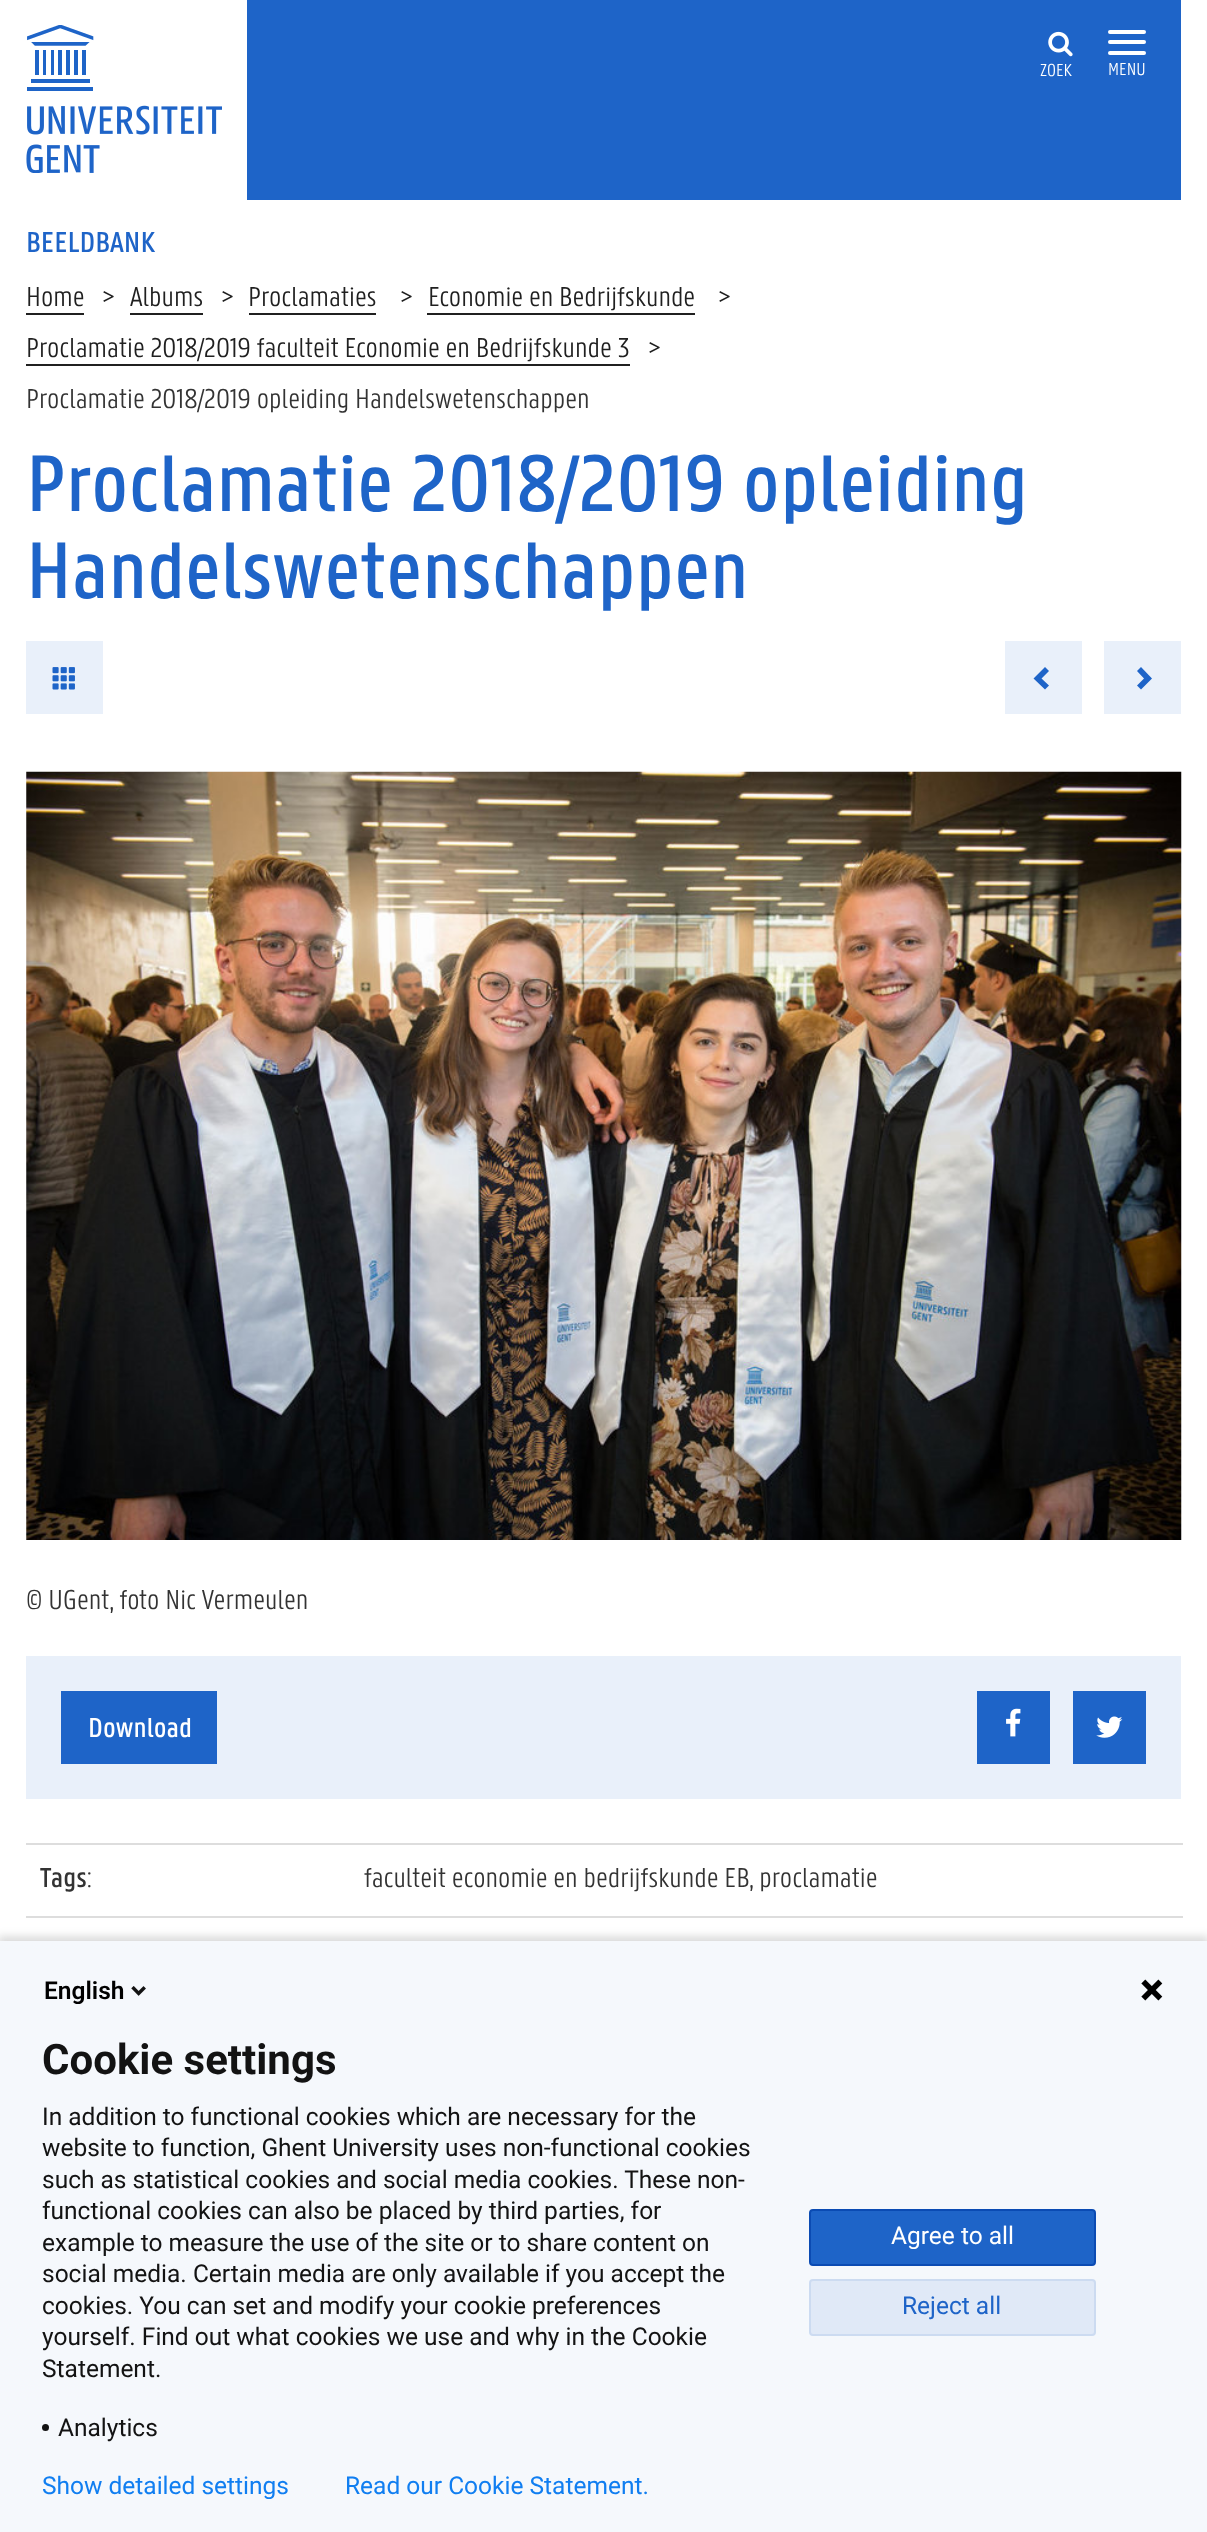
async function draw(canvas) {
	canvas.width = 1207;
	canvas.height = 2532;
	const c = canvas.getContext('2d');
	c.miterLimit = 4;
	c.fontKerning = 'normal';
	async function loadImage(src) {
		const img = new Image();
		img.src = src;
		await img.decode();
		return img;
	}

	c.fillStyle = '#fff';
	c.fillRect(0, 0, 1207, 2532);
	c.fillStyle = '#1e64c8';
	c.fillRect(247, 0, 934, 200);
	c.drawImage(await loadImage('img1.png'), 26, 25, 196, 148);
	c.drawImage(await loadImage('img2.png'), 1048, 31, 25, 26);
	c.font = '300 19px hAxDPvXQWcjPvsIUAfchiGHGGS';
	c.fillStyle = '#fff';
	c.fillText('ZOEK', 1040, 76);
	c.beginPath();
	c.roundRect(1108, 30, 38, 4, 2);
	c.fill();
	c.beginPath();
	c.roundRect(1108, 40, 38, 4, 2);
	c.fill();
	c.beginPath();
	c.roundRect(1108, 51, 38, 4, 2);
	c.fill();
	c.fillText('MENU', 1108, 75);
	c.font = '500 31.5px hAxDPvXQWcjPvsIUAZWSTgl';
	c.fillStyle = '#1e64c8';
	c.fillText('BEELDBANK', 26, 252);
	c.font = '300 29.75px hAxDPvXQWcjPvsIUAfchiGHGGS';
	c.fillStyle = '#202020';
	c.fillText('Home', 26, 306);
	c.fillRect(26, 313, 58, 2);
	c.fillText('>', 102, 306);
	c.fillText('Albums', 130, 306);
	c.fillRect(130, 313, 73, 2);
	c.fillText('>', 221, 306);
	c.fillText('Proclamaties', 248, 306);
	c.fillRect(249, 313, 127, 2);
	c.fillText('>', 400, 306);
	c.fillText('Economie en Bedrijfskunde', 428, 306);
	c.fillRect(427, 313, 268, 2);
	c.fillText('>', 718, 306);
	c.fillText('Proclamatie 2018/2019 faculteit Economie en Bedrijfskunde 3', 26, 357);
	c.fillRect(26, 364, 604, 2);
	c.fillText('>', 648, 357);
	c.fillStyle = '#333';
	c.fillText('Proclamatie 2018/2019 opleiding Handelswetenschappen', 26, 408);
	c.font = '500 87.5px hAxDPvXQWcjPvsIUAZWSTgl';
	c.fillStyle = '#1e64c8';
	c.fillText('Proclamatie 2018/2019 opleiding', 26, 511);
	c.fillText('Handelswetenschappen', 26, 598);
	c.fillStyle = '#e9f0fa';
	c.fillRect(26, 641, 77, 73);
	c.drawImage(await loadImage('img3.png'), 52, 667, 23, 23);
	c.fillRect(1005, 641, 77, 73);
	c.fillStyle = '#1e64c8';
	c.beginPath();
	c.moveTo(1049, 671);
	c.lineTo(1041.5, 678.5);
	c.lineTo(1049, 685.5);
	c.lineTo(1045, 689.5);
	c.lineTo(1033.5, 678.5);
	c.lineTo(1045, 667);
	c.closePath();
	c.fill();
	c.fillStyle = '#e9f0fa';
	c.fillRect(1104, 641, 77, 73);
	c.fillStyle = '#1e64c8';
	c.beginPath();
	c.moveTo(1152, 678.5);
	c.lineTo(1141, 689.5);
	c.lineTo(1137, 685.5);
	c.lineTo(1144, 678.5);
	c.lineTo(1137, 671);
	c.lineTo(1141, 667);
	c.closePath();
	c.fill();
	c.drawImage(await loadImage('img4.png'), 26, 771, 1156, 769);
	c.font = '300 29.75px hAxDPvXQWcjPvsIUAfchiGHGGS';
	c.fillStyle = '#333';
	c.fillText('© UGent, foto Nic Vermeulen', 26, 1609);
	c.fillStyle = '#e9f0fa';
	c.fillRect(26, 1656, 1155, 143);
	c.fillStyle = '#1e64c8';
	c.fillRect(61, 1691, 156, 73);
	c.font = '500 29.75px hAxDPvXQWcjPvsIUAZWSTgl';
	c.fillStyle = '#fff';
	c.fillText('Download', 88, 1737);
	c.fillStyle = '#1e64c8';
	c.fillRect(977, 1691, 73, 73);
	c.drawImage(await loadImage('img5.png'), 1006, 1708, 15, 29);
	c.fillRect(1073, 1691, 73, 73);
	c.drawImage(await loadImage('img6.png'), 1096, 1716, 27, 22);
	c.fillStyle = '#333';
	c.fillText('Tags', 40, 1887);
	c.font = '300 29.75px hAxDPvXQWcjPvsIUAfchiGHGGS';
	c.fillText(':', 87, 1887);
	c.fillStyle = '#ddd';
	c.fillRect(26, 1843, 1157, 2);
	c.fillStyle = '#333';
	c.fillText('faculteit economie en bedrijfskunde EB, proclamatie', 364, 1887);
	c.fillStyle = '#ddd';
	c.fillRect(26, 1916, 1157, 2);
	c.fillStyle = '#00000024';
	c.filter = 'blur(4.5px)';
	c.beginPath();
	c.rect(-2, 1936, 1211, 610);
	c.fill();
	c.filter = 'none';
	c.fillStyle = '#f5f8fc';
	c.fillRect(0, 1941, 1207, 591);
	c.font = '600 24.5px Roboto';
	c.fillStyle = '#000';
	c.fillText('English', 44, 1999);
	c.drawImage(await loadImage('img7.png'), 131, 1986, 15, 10);
	c.drawImage(await loadImage('img8.png'), 1141, 1979, 22, 22);
	c.font = 'bold 42px Roboto';
	c.fillStyle = '#131313';
	c.fillText('Cookie settings', 42, 2074);
	c.font = '24.5px Roboto';
	for (const [text, x, y] of [
		['In addition to functional cookies which are necessary for the', 42, 2125],
		['website to function, Ghent University uses non-functional cookies', 42, 2156],
		['such as statistical cookies and social media cookies. These non-', 42, 2188],
		['functional cookies can also be placed by third parties, for', 42, 2219],
		['example to measure the use of the site or to share content on', 42, 2251],
		['social media. Certain media are only available if you accept the', 42, 2282],
		['cookies. You can set and modify your cookie preferences', 42, 2314],
		['yourself. Find out what cookies we use and why in the Cookie', 42, 2345],
		['Statement.', 42, 2377],
	]) {
		c.fillText(text, x, y);
	}
	c.beginPath();
	c.arc(45.5, 2427.5, 3.5, 0, 2 * Math.PI);
	c.fill();
	c.fillText('Analytics', 58, 2436);
	c.fillStyle = '#1e64c8';
	c.beginPath();
	c.roundRect(810, 2210, 285, 55, 3);
	c.fill();
	c.strokeStyle = '#0b4bb3';
	c.lineWidth = 2;
	c.stroke();
	c.fillStyle = '#fff';
	c.fillText('Agree to all', 891, 2244);
	c.fillStyle = '#e0e9f7';
	c.beginPath();
	c.roundRect(809, 2279, 287, 57, 4);
	c.fill();
	c.beginPath();
	c.roundRect(810, 2280, 285, 55, 3);
	c.strokeStyle = '#1e64c81a';
	c.stroke();
	c.fillStyle = '#1e64c8';
	c.fillText('Reject all', 902, 2314);
	c.fillStyle = '#107ef1';
	c.fillText('Show detailed settings', 42, 2494);
	c.fillText('Read our Cookie Statement.', 345, 2494);
}

draw(document.querySelector('canvas'));
